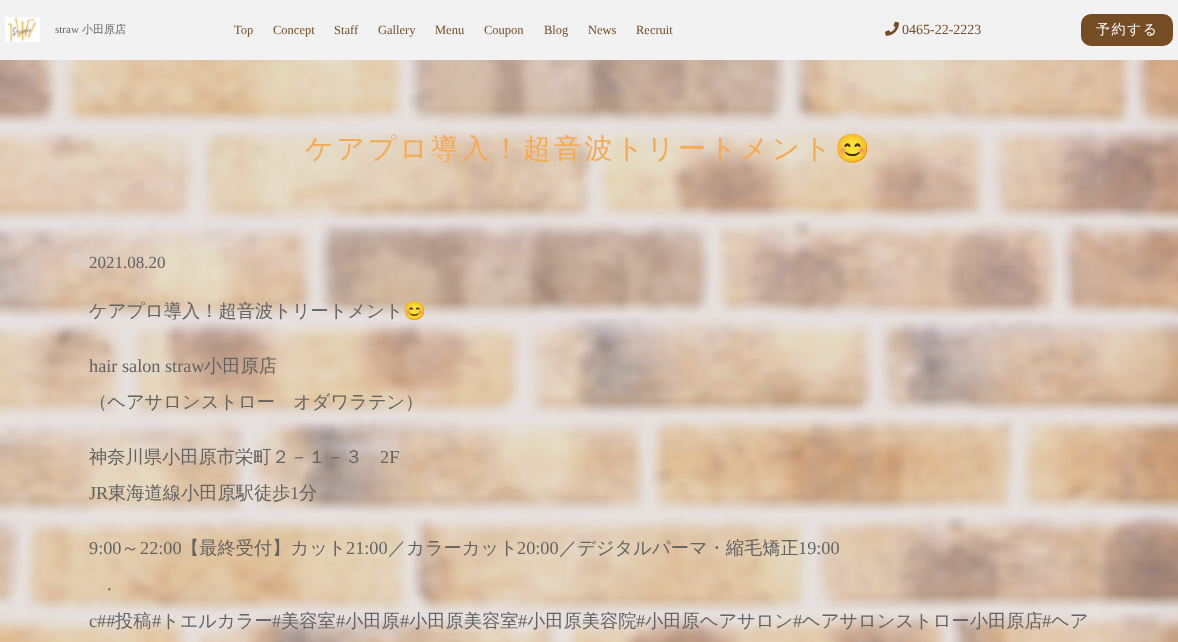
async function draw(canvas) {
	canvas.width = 1178;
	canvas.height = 642;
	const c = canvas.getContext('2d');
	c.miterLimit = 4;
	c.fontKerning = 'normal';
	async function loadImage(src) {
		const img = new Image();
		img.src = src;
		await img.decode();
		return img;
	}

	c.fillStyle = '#fff';
	c.fillRect(0, 0, 1178, 642);
	c.drawImage(await loadImage('img1.png'), 0, 60, 1178, 582);
	c.fillStyle = '#f2f2f2';
	c.fillRect(0, 0, 1178, 60);
	c.drawImage(await loadImage('img2.png'), 5, 17, 35, 25);
	c.font = '11px Liberation Serif';
	c.fillStyle = '#636363';
	c.fillText('straw', 55, 33);
	c.font = '500 11px WenQuanYi Zen Hei';
	c.fillText('小田原店', 82, 33);
	c.font = '12.5px Liberation Serif';
	c.fillStyle = '#754c24';
	for (const [text, x, y] of [
		['Top', 234, 34],
		['Concept', 273, 34],
		['Staff', 334, 34],
		['Gallery', 378, 34],
		['Menu', 435, 34],
		['Coupon', 484, 34],
		['Blog', 544, 34],
		['News', 588, 34],
		['Recruit', 636, 34],
	]) {
		c.fillText(text, x, y);
	}
	c.drawImage(await loadImage('img3.png'), 885, 21, 14, 15);
	c.font = '14px Liberation Serif';
	c.fillText('0465-22-2223', 902, 34);
	c.beginPath();
	c.roundRect(1081, 14, 92, 32, 10);
	c.fill();
	c.letterSpacing = '1.5px';
	c.font = '500 14px WenQuanYi Zen Hei';
	c.fillStyle = '#fff';
	c.fillText('予約する', 1096, 34);
	c.letterSpacing = '2.75px';
	c.font = '500 28px WenQuanYi Zen Hei';
	c.fillStyle = '#f5a951';
	c.fillText('ケアプロ導入！超音波トリートメント', 305, 158);
	c.font = '28px Noto Color Emoji';
	c.fillText('😊', 835, 158);
	c.letterSpacing = '0px';
	c.font = '17px Liberation Serif';
	c.fillStyle = '#636363';
	c.fillText('2021.08.20', 89, 268);
	c.font = '500 18.25px WenQuanYi Zen Hei';
	c.fillText('ケアプロ導入！超音波トリートメント', 89, 317);
	c.font = '18.25px Noto Color Emoji';
	c.fillText('😊', 403, 317);
	c.font = '18.25px Liberation Serif';
	c.fillText('hair salon straw', 89, 372);
	c.font = '500 18.25px WenQuanYi Zen Hei';
	for (const [text, x, y] of [
		['小田原店', 204, 372],
		['（ヘアサロンストロー　オダワラテン）', 89, 408],
		['神奈川県小田原市栄町２－１－３', 89, 463],
	]) {
		c.fillText(text, x, y);
	}
	c.font = '18.25px Liberation Serif';
	c.fillText('2F', 380, 463);
	c.fillText('JR', 89, 499);
	c.font = '500 18.25px WenQuanYi Zen Hei';
	c.fillText('東海道線小田原駅徒歩', 108, 499);
	c.font = '18.25px Liberation Serif';
	c.fillText('1', 290, 499);
	c.font = '500 18.25px WenQuanYi Zen Hei';
	c.fillText('分', 299, 499);
	c.font = '18.25px Liberation Serif';
	c.fillText('9:00', 89, 554);
	c.font = '500 18.25px WenQuanYi Zen Hei';
	c.fillText('～', 121, 554);
	c.font = '18.25px Liberation Serif';
	c.fillText('22:00', 140, 554);
	c.font = '500 18.25px WenQuanYi Zen Hei';
	c.fillText('【最終受付】カット', 181, 554);
	c.font = '18.25px Liberation Serif';
	c.fillText('21:00', 346, 554);
	c.font = '500 18.25px WenQuanYi Zen Hei';
	c.fillText('／カラーカット', 388, 554);
	c.font = '18.25px Liberation Serif';
	c.fillText('20:00', 517, 554);
	c.font = '500 18.25px WenQuanYi Zen Hei';
	c.fillText('／デジタルパーマ・縮毛矯正', 559, 554);
	c.font = '18.25px Liberation Serif';
	for (const [text, x, y] of [
		['19:00', 798, 554],
		['.', 107, 590],
		['c##', 89, 627],
	]) {
		c.fillText(text, x, y);
	}
	c.font = '500 18.25px WenQuanYi Zen Hei';
	c.fillText('投稿', 115, 627);
	c.font = '18.25px Liberation Serif';
	c.fillText('#', 152, 627);
	c.font = '500 18.25px WenQuanYi Zen Hei';
	c.fillText('トエルカラー', 161, 627);
	c.font = '18.25px Liberation Serif';
	c.fillText('#', 272, 627);
	c.font = '500 18.25px WenQuanYi Zen Hei';
	c.fillText('美容室', 281, 627);
	c.font = '18.25px Liberation Serif';
	c.fillText('#', 336, 627);
	c.font = '500 18.25px WenQuanYi Zen Hei';
	c.fillText('小田原', 345, 627);
	c.font = '18.25px Liberation Serif';
	c.fillText('#', 400, 627);
	c.font = '500 18.25px WenQuanYi Zen Hei';
	c.fillText('小田原美容室', 409, 627);
	c.font = '18.25px Liberation Serif';
	c.fillText('#', 518, 627);
	c.font = '500 18.25px WenQuanYi Zen Hei';
	c.fillText('小田原美容院', 527, 627);
	c.font = '18.25px Liberation Serif';
	c.fillText('#', 636, 627);
	c.font = '500 18.25px WenQuanYi Zen Hei';
	c.fillText('小田原ヘアサロン', 645, 627);
	c.font = '18.25px Liberation Serif';
	c.fillText('#', 793, 627);
	c.font = '500 18.25px WenQuanYi Zen Hei';
	c.fillText('ヘアサロンストロー小田原店', 802, 627);
	c.font = '18.25px Liberation Serif';
	c.fillText('#', 1042, 627);
	c.font = '500 18.25px WenQuanYi Zen Hei';
	c.fillText('ヘア', 1051, 627);
}

draw(document.querySelector('canvas'));
